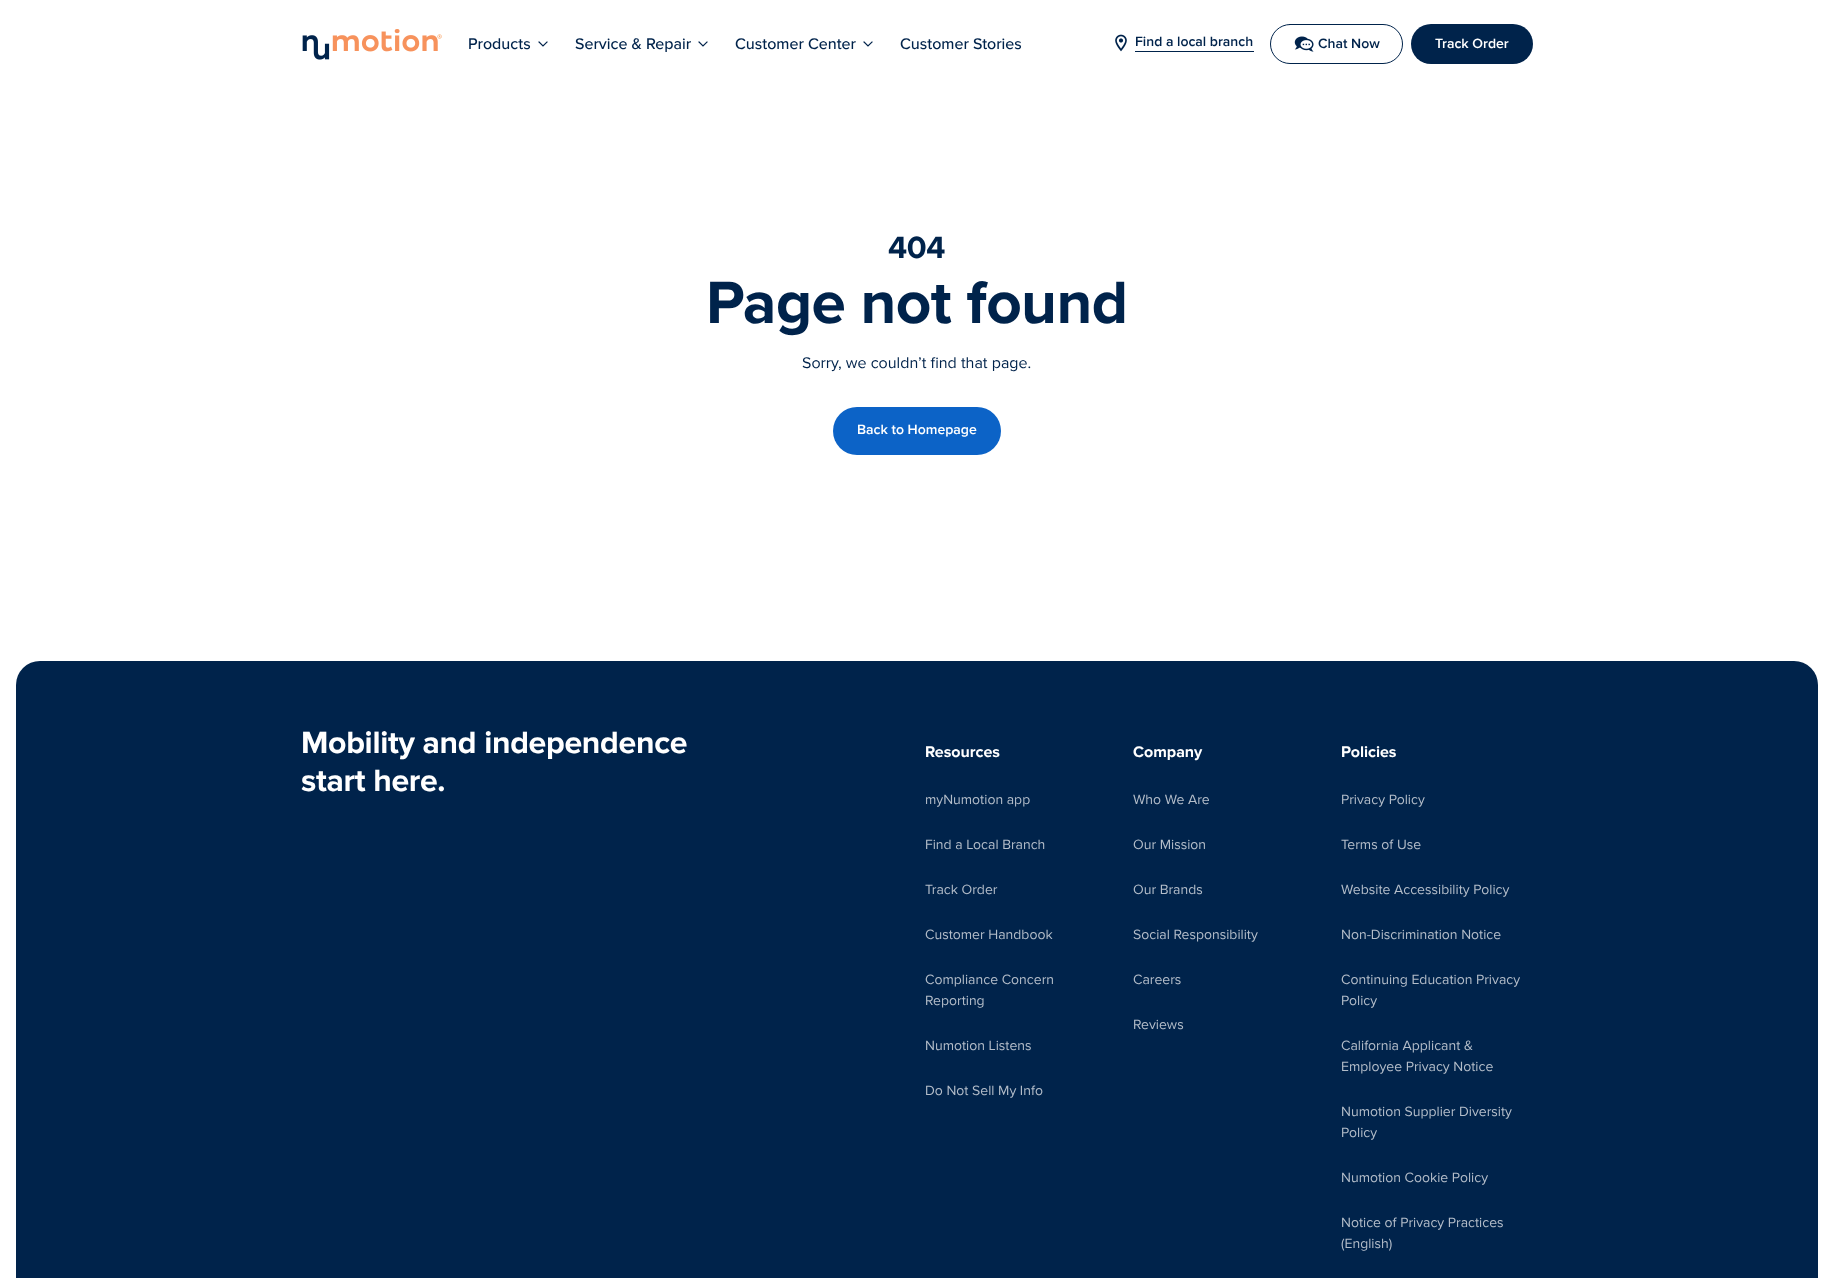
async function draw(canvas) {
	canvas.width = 1834;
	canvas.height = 1278;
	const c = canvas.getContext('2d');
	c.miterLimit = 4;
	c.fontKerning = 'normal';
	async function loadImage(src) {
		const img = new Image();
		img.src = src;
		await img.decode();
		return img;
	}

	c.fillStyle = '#fff';
	c.fillRect(0, 0, 1834, 1278);
	c.drawImage(await loadImage('img1.png'), 302, 29, 140, 31);
	c.font = '500 16px Proxima Nova';
	c.fillStyle = '#00234b';
	c.fillText('Products', 468, 49);
	c.beginPath();
	c.moveTo(539, 42);
	c.lineTo(543, 46);
	c.lineTo(547, 42);
	c.strokeStyle = '#00234b';
	c.lineWidth = 1.2;
	c.lineCap = 'square';
	c.stroke();
	c.fillText('Service & Repair', 575, 49);
	c.beginPath();
	c.moveTo(699, 42);
	c.lineTo(703, 46);
	c.lineTo(707, 42);
	c.stroke();
	c.fillText('Customer Center', 735, 49);
	c.beginPath();
	c.moveTo(864, 42);
	c.lineTo(868, 46);
	c.lineTo(872, 42);
	c.stroke();
	c.fillText('Customer Stories', 900, 49);
	c.drawImage(await loadImage('img2.png'), 1115, 34, 12, 18);
	c.font = '600 14px Proxima Nova';
	c.fillText('Find a local branch', 1135, 46);
	c.fillRect(1135, 51, 119, 1);
	c.beginPath();
	c.roundRect(1270.5, 24.5, 132, 39, 19.5);
	c.lineWidth = 1;
	c.stroke();
	c.drawImage(await loadImage('img3.png'), 1294, 36, 20, 16);
	c.fillText('Chat Now', 1318, 48);
	c.beginPath();
	c.roundRect(1411, 24, 122, 40, 20);
	c.fill();
	c.fillStyle = '#fff';
	c.fillText('Track Order', 1435, 48);
	c.letterSpacing = '-0.3px';
	c.font = 'bold 32px Proxima Nova';
	c.fillStyle = '#00234b';
	c.fillText('404', 888, 258);
	c.letterSpacing = '-0.6px';
	c.font = 'bold 62px Proxima Nova';
	c.fillText('Page not found', 706, 323);
	c.letterSpacing = '0px';
	c.font = '16px Proxima Nova';
	c.fillText('Sorry, we couldn’t find that page.', 802, 368);
	c.fillStyle = '#0c63c7';
	c.beginPath();
	c.roundRect(833, 407, 168, 48, 24);
	c.fill();
	c.font = '600 14px Proxima Nova';
	c.fillStyle = '#fff';
	c.fillText('Back to Homepage', 857, 434);
	c.fillStyle = '#00234b';
	c.beginPath();
	c.roundRect(16, 661, 1802, 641, 24);
	c.fill();
	c.letterSpacing = '-0.3px';
	c.font = 'bold 32px Proxima Nova';
	c.fillStyle = '#fff';
	c.fillText('Mobility and independence', 301, 753);
	c.fillText('start here.', 301, 791);
	c.letterSpacing = '0px';
	c.font = 'bold 16px Proxima Nova';
	c.fillText('Resources', 925, 757);
	c.font = '14px Proxima Nova';
	c.fillStyle = '#b3bdc9';
	for (const [text, x, y] of [
		['myNumotion app', 925, 804],
		['Find a Local Branch', 925, 849],
		['Track Order', 925, 894],
		['Customer Handbook', 925, 939],
		['Compliance Concern', 925, 984],
		['Reporting', 925, 1005],
		['Numotion Listens', 925, 1050],
		['Do Not Sell My Info', 925, 1095],
	]) {
		c.fillText(text, x, y);
	}
	c.font = 'bold 16px Proxima Nova';
	c.fillStyle = '#fff';
	c.fillText('Company', 1133, 757);
	c.font = '14px Proxima Nova';
	c.fillStyle = '#b3bdc9';
	for (const [text, x, y] of [
		['Who We Are', 1133, 804],
		['Our Mission', 1133, 849],
		['Our Brands', 1133, 894],
		['Social Responsibility', 1133, 939],
		['Careers', 1133, 984],
		['Reviews', 1133, 1029],
	]) {
		c.fillText(text, x, y);
	}
	c.font = 'bold 16px Proxima Nova';
	c.fillStyle = '#fff';
	c.fillText('Policies', 1341, 757);
	c.font = '14px Proxima Nova';
	c.fillStyle = '#b3bdc9';
	for (const [text, x, y] of [
		['Privacy Policy', 1341, 804],
		['Terms of Use', 1341, 849],
		['Website Accessibility Policy', 1341, 894],
		['Non-Discrimination Notice', 1341, 939],
		['Continuing Education Privacy', 1341, 984],
		['Policy', 1341, 1005],
		['California Applicant &', 1341, 1050],
		['Employee Privacy Notice', 1341, 1071],
		['Numotion Supplier Diversity', 1341, 1116],
		['Policy', 1341, 1137],
		['Numotion Cookie Policy', 1341, 1182],
		['Notice of Privacy Practices', 1341, 1227],
		['(English)', 1341, 1248],
	]) {
		c.fillText(text, x, y);
	}
}

draw(document.querySelector('canvas'));
